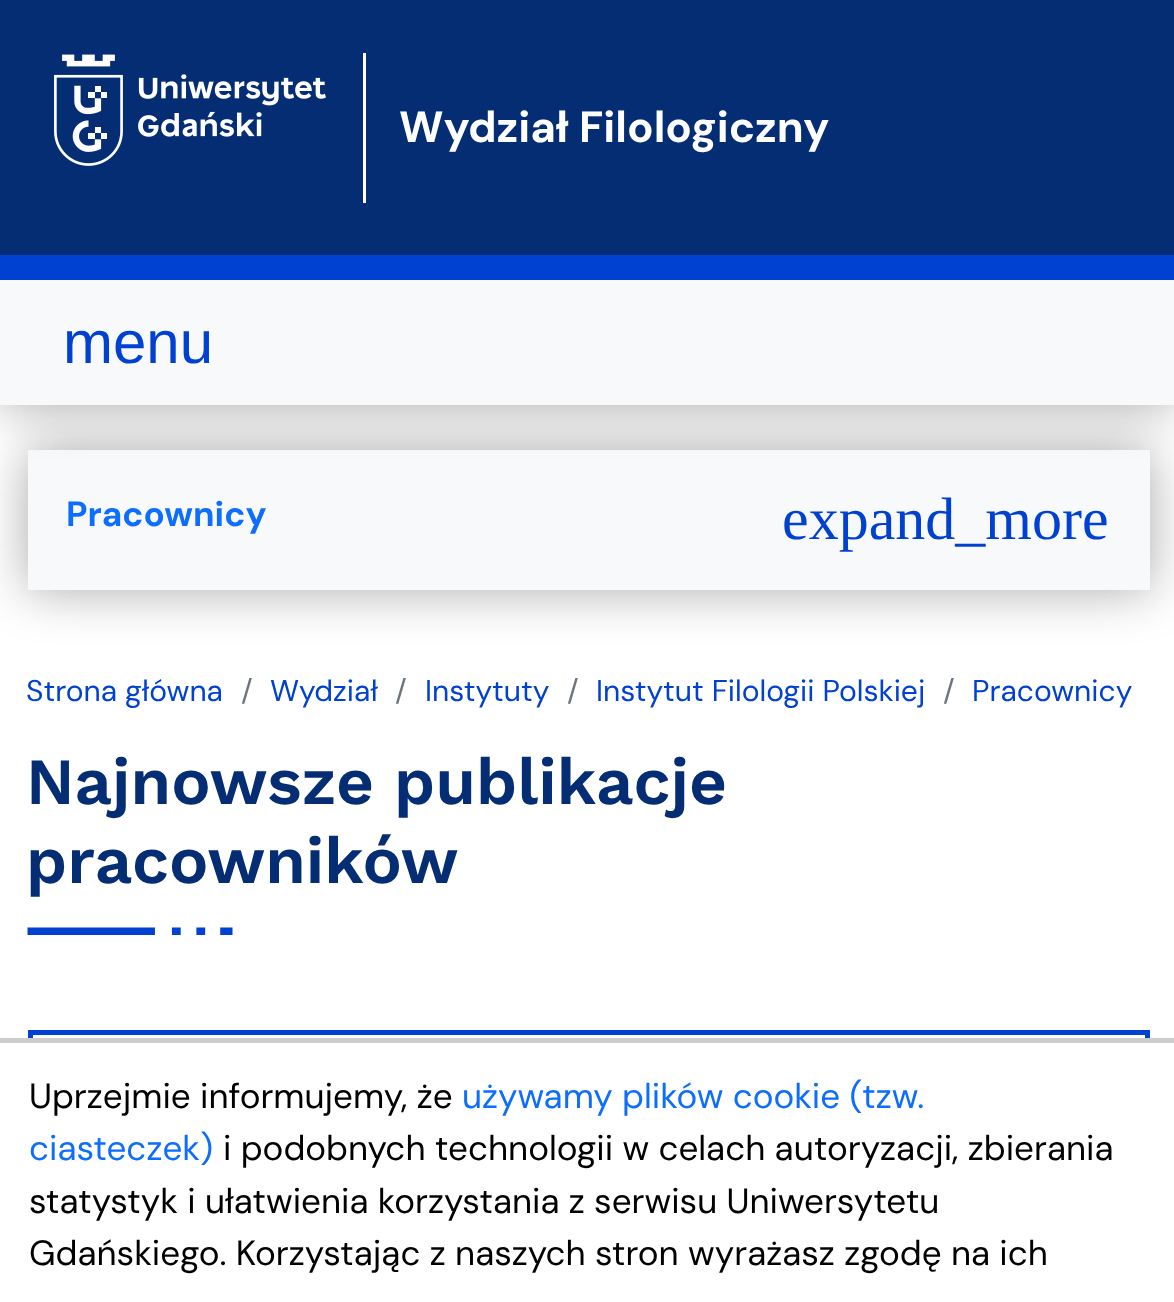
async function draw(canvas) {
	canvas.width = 1174;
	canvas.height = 1302;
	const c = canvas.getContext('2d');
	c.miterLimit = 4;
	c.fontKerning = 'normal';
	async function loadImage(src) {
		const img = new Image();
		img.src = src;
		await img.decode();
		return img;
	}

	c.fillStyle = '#fff';
	c.fillRect(0, 0, 1174, 1302);
	c.fillStyle = '#07070759';
	c.filter = 'blur(25px)';
	c.beginPath();
	c.rect(28, 450, 1122, 140);
	c.fill();
	c.filter = 'none';
	c.fillStyle = '#f8f9fb';
	c.fillRect(28, 450, 1122, 140);
	c.fillStyle = '#07070759';
	c.filter = 'blur(25px)';
	c.beginPath();
	c.rect(0, 255, 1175, 150);
	c.fill();
	c.filter = 'none';
	c.fillStyle = '#052d73';
	c.fillRect(0, 0, 1174, 255);
	c.fillStyle = '#fff';
	c.fillRect(363, 53, 3, 150);
	c.drawImage(await loadImage('img1.png'), 54, 54, 272, 112);
	c.font = 'bold 43.75px DM Sans';
	c.fillText('Wydział Filologiczny', 399, 142);
	c.fillStyle = '#f8f9fa';
	c.fillRect(0, 280, 1174, 125);
	c.fillStyle = '#0041d2';
	c.fillRect(0, 255, 1174, 25);
	c.font = '60px Liberation Sans';
	c.fillText('menu', 63, 363);
	c.font = 'bold 35px DM Sans';
	c.fillStyle = '#0d6efd';
	c.fillText('Pracownicy', 66, 526);
	c.font = '60px Liberation Serif';
	c.fillStyle = '#0041d2';
	c.fillText('expand_more', 782, 539);
	c.font = '30px DM Sans';
	c.fillText('Strona główna', 26, 701);
	c.fillStyle = '#6c757d';
	c.fillText('/', 241, 701);
	c.fillStyle = '#0041d2';
	c.fillText('Wydział', 270, 701);
	c.fillStyle = '#6c757d';
	c.fillText('/', 395, 701);
	c.fillStyle = '#0041d2';
	c.fillText('Instytuty', 425, 701);
	c.fillStyle = '#6c757d';
	c.fillText('/', 567, 701);
	c.fillStyle = '#0041d2';
	c.fillText('Instytut Filologii Polskiej', 596, 701);
	c.fillStyle = '#6c757d';
	c.fillText('/', 943, 701);
	c.fillStyle = '#0041d2';
	c.fillText('Pracownicy', 972, 701);
	c.font = '600 65.75px Work Sans';
	c.fillStyle = '#052d73';
	c.fillText('Najnowsze publikacje', 26, 804);
	c.fillText('pracowników', 26, 883);
	c.drawImage(await loadImage('img2.png'), 27, 927, 206, 8);
	c.strokeStyle = '#0041d2';
	c.lineWidth = 5;
	c.strokeRect(30.5, 1032.5, 1117, 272);
	c.fillStyle = '#fff';
	c.fillRect(28, 1043, 1122, 259);
	c.fillStyle = '#cdcdcd';
	c.fillRect(0, 1038, 1174, 5);
	c.font = '35px DM Sans';
	c.fillStyle = '#000';
	c.fillText('Uprzejmie informujemy, że', 29, 1108);
	c.fillStyle = '#0d6efd';
	c.fillText('używamy plików cookie (tzw.', 462, 1108);
	c.fillText('ciasteczek)', 29, 1160);
	c.fillStyle = '#000';
	for (const [text, x, y] of [
		['i podobnych technologii w celach autoryzacji, zbierania', 223, 1160],
		['statystyk i ułatwienia korzystania z serwisu Uniwersytetu', 29, 1213],
		['Gdańskiego. Korzystając z naszych stron wyrażasz zgodę na ich', 29, 1265],
	]) {
		c.fillText(text, x, y);
	}
}

draw(document.querySelector('canvas'));
